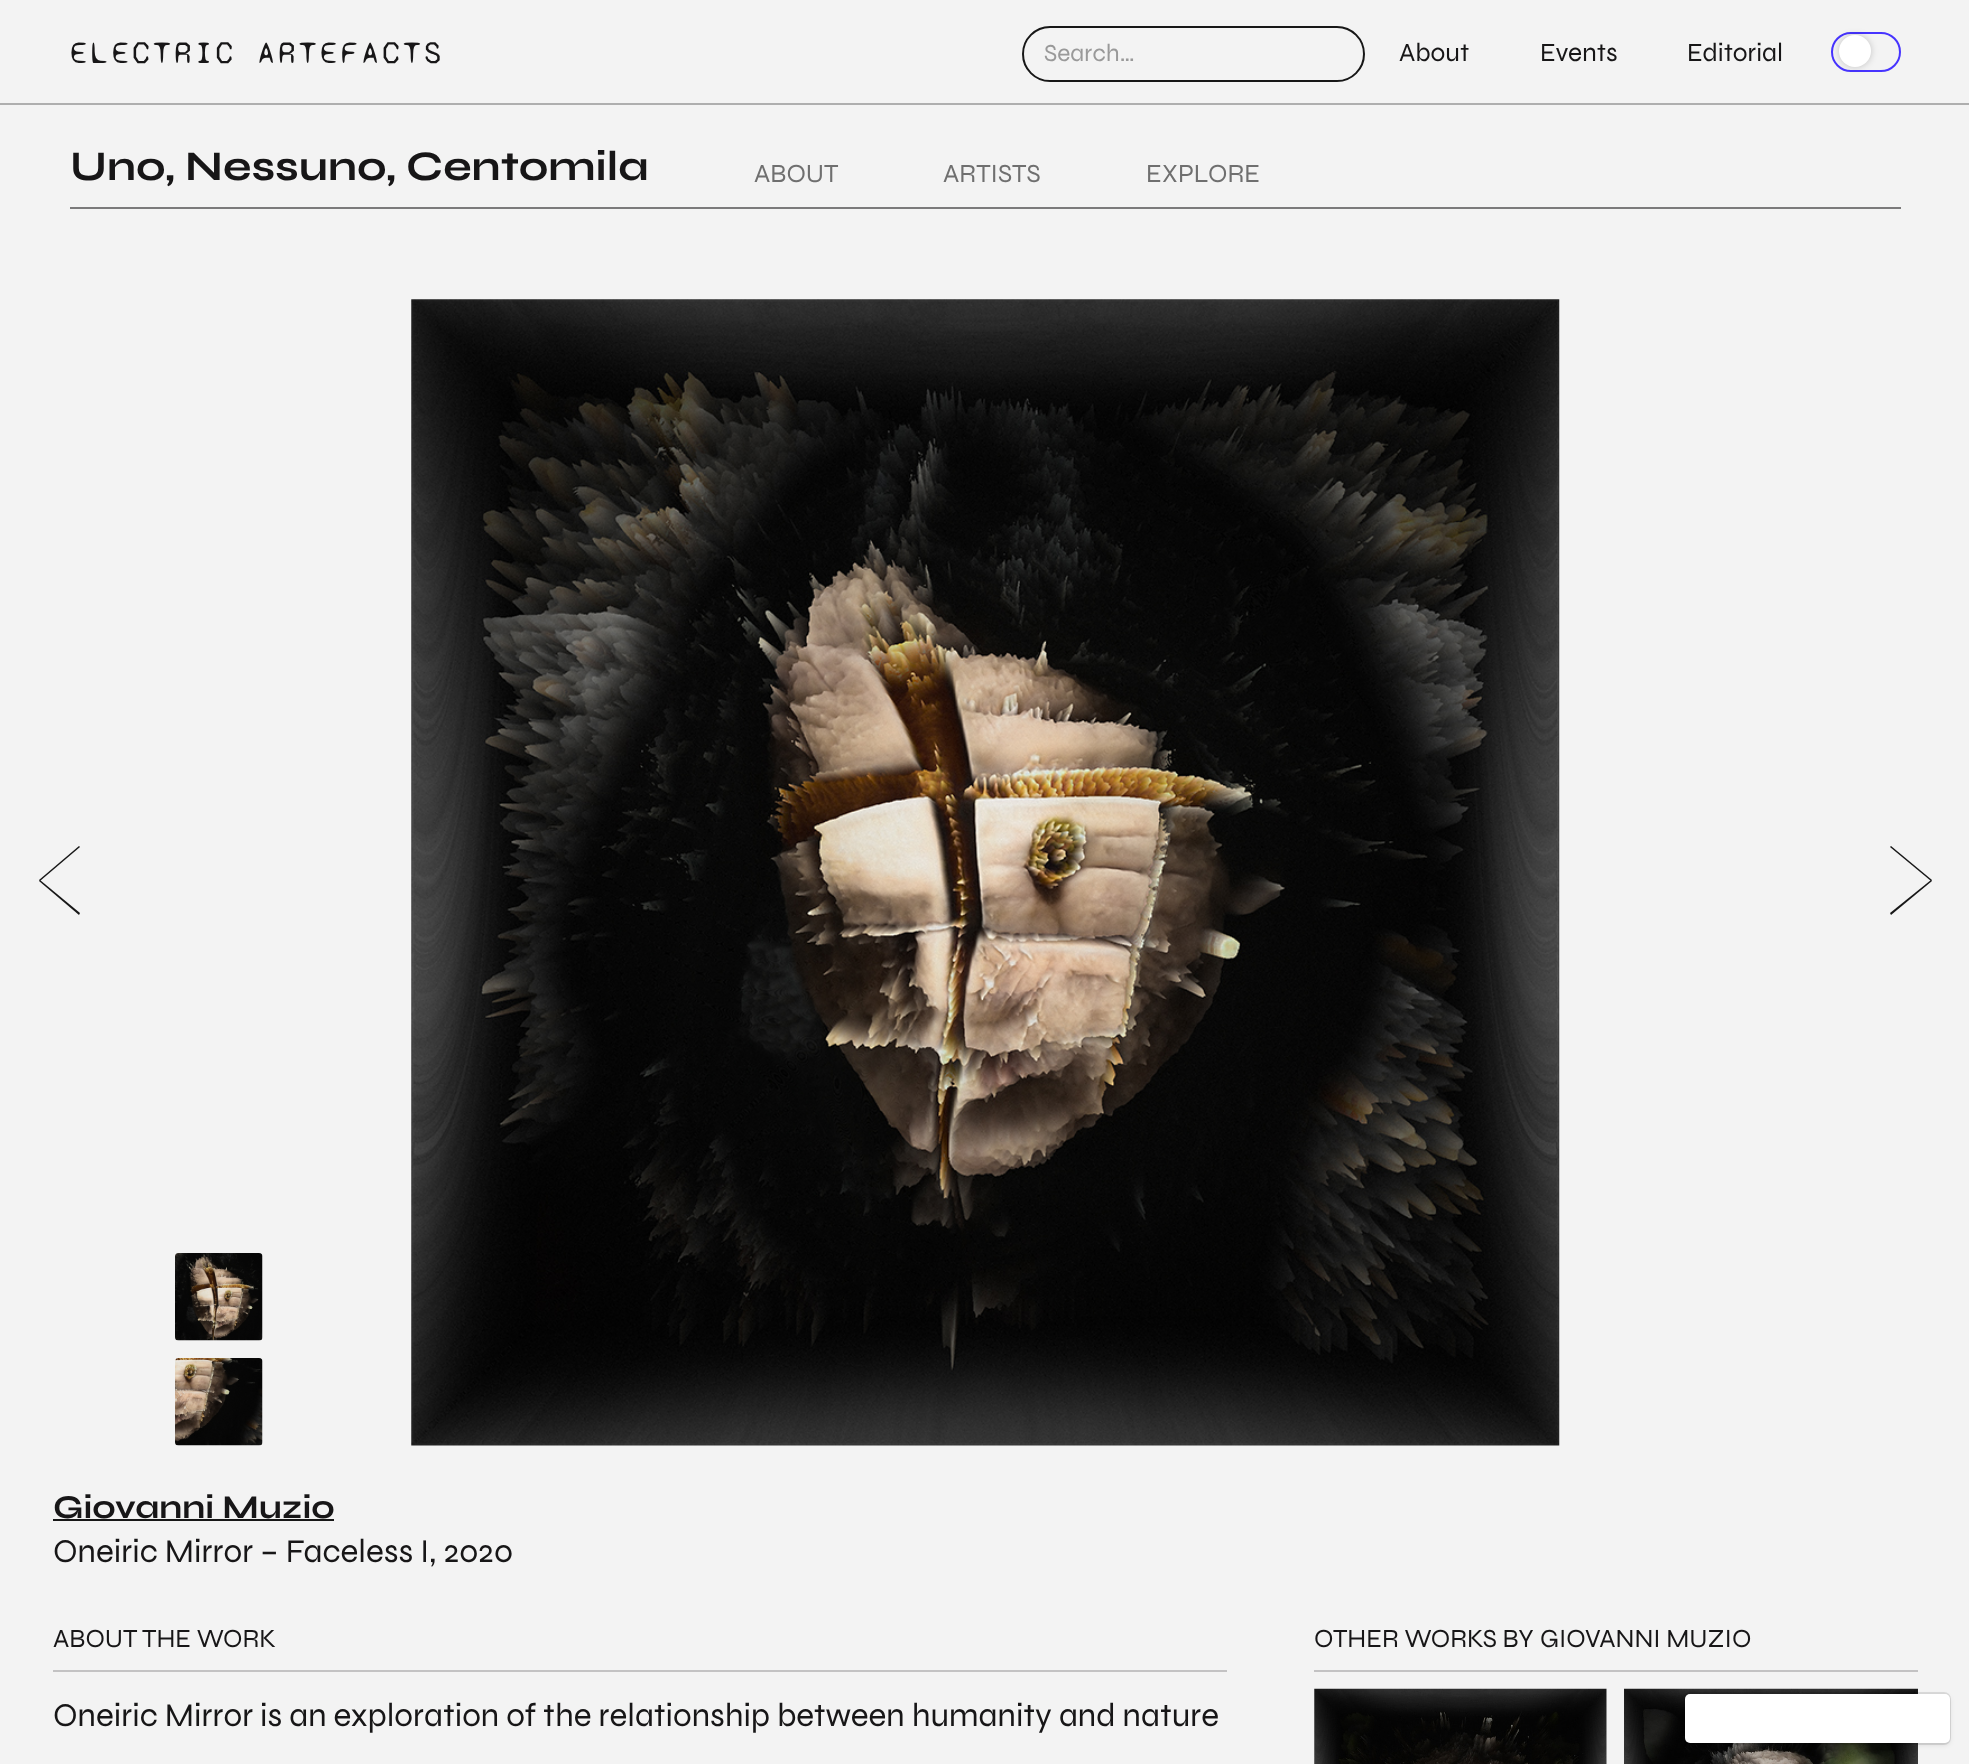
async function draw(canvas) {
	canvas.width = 1969;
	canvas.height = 1764;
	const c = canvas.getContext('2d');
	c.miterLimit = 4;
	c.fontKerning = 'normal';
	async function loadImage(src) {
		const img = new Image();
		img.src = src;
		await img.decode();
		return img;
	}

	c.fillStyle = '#f3f3f3';
	c.fillRect(0, 0, 1969, 1764);
	c.fillStyle = '#aeaeae';
	c.fillRect(0, 103, 1969, 2);
	c.letterSpacing = '3.5px';
	c.font = '31.5px "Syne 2"';
	c.fillStyle = '#171617';
	c.fillText('ELECTRIC ARTEFACTS', 70, 63);
	c.beginPath();
	c.roundRect(1023, 27, 341, 54, 27);
	c.strokeStyle = '#171717';
	c.lineWidth = 2;
	c.stroke();
	c.letterSpacing = '0px';
	c.font = '24.5px Syne';
	c.fillStyle = '#999';
	c.fillText('Search…', 1044, 61);
	c.font = '26.25px Syne';
	c.fillStyle = '#171617';
	for (const [text, x, y] of [
		['About', 1399, 61],
		['Events', 1540, 61],
		['Editorial', 1687, 61],
	]) {
		c.fillText(text, x, y);
	}
	c.beginPath();
	c.roundRect(1832, 33, 68, 38, 19);
	c.strokeStyle = '#4734ff';
	c.stroke();
	c.fillStyle = '#00000033';
	c.filter = 'blur(3.5px)';
	c.beginPath();
	c.roundRect(1839, 35, 32, 32, 16);
	c.fill();
	c.filter = 'none';
	c.fillStyle = '#fff';
	c.beginPath();
	c.arc(1855, 51, 16, 0, 2 * Math.PI);
	c.fill();
	c.fillStyle = '#7b7a7b';
	c.fillRect(70, 207, 1831, 2);
	c.font = 'bold 42px Syne';
	c.fillStyle = '#171617';
	c.fillText('Uno, Nessuno, Centomila', 70, 180);
	c.font = '26.25px Syne';
	c.fillStyle = '#6f6f6f';
	for (const [text, x, y] of [
		['ABOUT', 754, 182],
		['ARTISTS', 943, 182],
		['EXPLORE', 1146, 182],
	]) {
		c.fillText(text, x, y);
	}
	c.drawImage(await loadImage('img1.png'), 175, 1253, 88, 88);
	c.drawImage(await loadImage('img2.png'), 175, 1358, 88, 88);
	c.drawImage(await loadImage('img3.png'), 411, 299, 1149, 1147);
	c.fillStyle = '#171717';
	c.beginPath();
	c.moveTo(40, 880);
	c.lineTo(80, 913);
	c.lineTo(79, 915);
	c.lineTo(39, 881);
	c.closePath();
	c.fill();
	c.beginPath();
	c.moveTo(39, 880);
	c.lineTo(79, 846);
	c.lineTo(80, 847);
	c.lineTo(40, 881);
	c.closePath();
	c.fill();
	c.beginPath();
	c.moveTo(1891, 846);
	c.lineTo(1932, 880);
	c.lineTo(1931, 881);
	c.lineTo(1890, 847);
	c.closePath();
	c.fill();
	c.beginPath();
	c.moveTo(1890, 913);
	c.lineTo(1931, 880);
	c.lineTo(1932, 881);
	c.lineTo(1891, 915);
	c.closePath();
	c.fill();
	c.font = 'bold 33.25px Syne';
	c.fillStyle = '#171617';
	c.fillText('Giovanni Muzio', 53, 1518);
	c.fillStyle = '#171717';
	c.fillRect(53, 1519, 281, 2);
	c.font = '33.25px Syne';
	c.fillStyle = '#171617';
	c.fillText('Oneiric Mirror – Faceless I,', 53, 1562);
	c.fillText('2020', 444, 1562);
	c.fillStyle = '#c3c2c3';
	c.fillRect(53, 1670, 1174, 2);
	c.font = '26.25px Syne';
	c.fillStyle = '#171617';
	c.fillText('ABOUT THE WORK', 53, 1647);
	c.font = '33.25px Syne';
	c.fillText('Oneiric Mirror is an exploration of the relationship between humanity and nature', 53, 1726);
	c.fillStyle = '#c3c2c3';
	c.fillRect(1314, 1670, 604, 2);
	c.font = '26.25px Syne';
	c.fillStyle = '#171617';
	c.fillText('OTHER WORKS BY', 1314, 1647);
	c.fillText('GIOVANNI MUZIO', 1540, 1647);
	c.drawImage(await loadImage('img4.png'), 1314, 1688, 293, 76);
	c.drawImage(await loadImage('img5.png'), 1624, 1688, 294, 76);
	c.fillStyle = '#0000001a';
	c.filter = 'blur(2.5px)';
	c.beginPath();
	c.roundRect(1685, 1696, 265, 49, 5);
	c.fill();
	c.filter = 'none';
	c.beginPath();
	c.roundRect(1685, 1693, 265, 51, 6);
	c.strokeStyle = '#0000001a';
	c.stroke();
	c.fillStyle = '#fff';
	c.beginPath();
	c.roundRect(1685, 1694, 265, 49, 5);
	c.fill();
}

draw(document.querySelector('canvas'));
